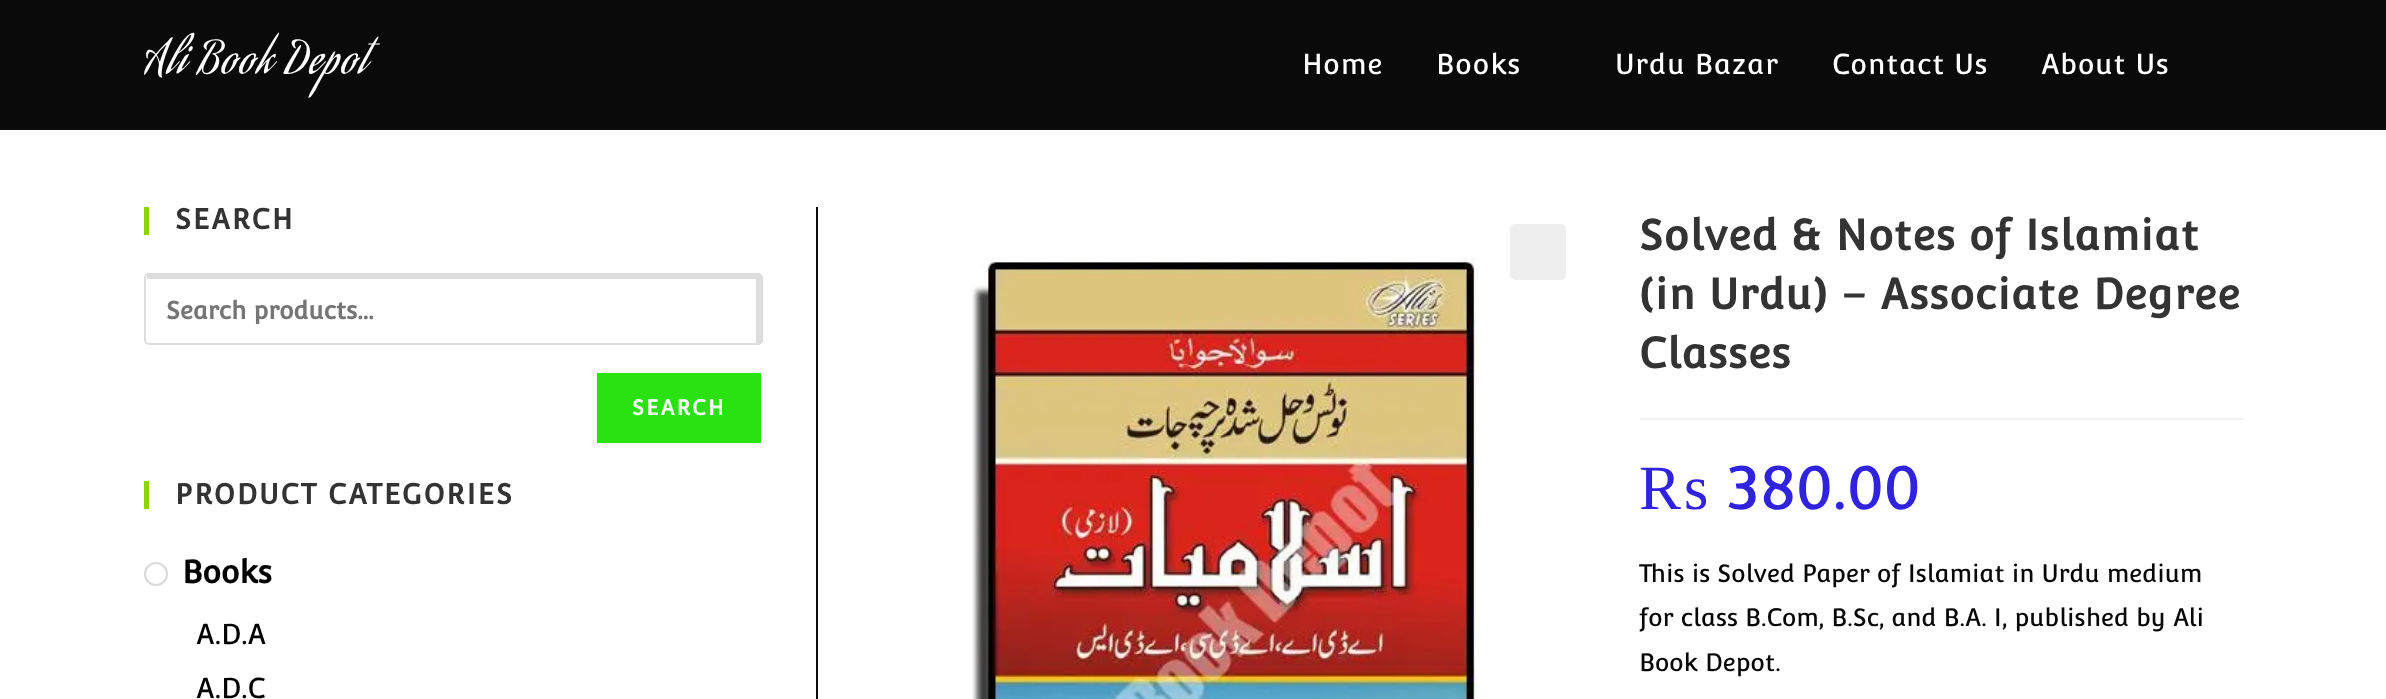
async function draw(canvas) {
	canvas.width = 2386;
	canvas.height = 699;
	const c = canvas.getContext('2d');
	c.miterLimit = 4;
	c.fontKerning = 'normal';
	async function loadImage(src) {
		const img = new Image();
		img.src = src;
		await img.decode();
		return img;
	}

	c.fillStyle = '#fff';
	c.fillRect(0, 0, 2386, 699);
	c.fillStyle = '#0a0a0a';
	c.fillRect(0, 0, 2386, 130);
	c.letterSpacing = '2.6px';
	c.font = '43.75px Aguafina Script';
	c.fillStyle = '#fff';
	c.fillText('Ali Book Depot', 144, 73);
	c.letterSpacing = '1.05px';
	c.font = '28px Convergence';
	for (const [text, x, y] of [
		['Home', 1302, 74],
		['Books', 1436, 74],
		['Urdu Bazar', 1615, 74],
		['Contact Us', 1832, 74],
		['About Us', 2041, 74],
	]) {
		c.fillText(text, x, y);
	}
	c.fillStyle = '#8bd602';
	c.fillRect(144, 207, 5, 28);
	c.letterSpacing = '1.75px';
	c.font = 'bold 28px Convergence';
	c.fillStyle = '#333';
	c.fillText('SEARCH', 175, 229);
	c.beginPath();
	c.roundRect(145, 274, 617, 70, 4);
	c.strokeStyle = '#ddd';
	c.lineWidth = 2;
	c.stroke();
	c.fillStyle = '#ddd';
	c.fillRect(147, 275, 614, 4);
	c.fillRect(756, 277, 5, 66);
	c.save();
	c.beginPath();
	c.rect(166, 296, 569, 28);
	c.clip();
	c.letterSpacing = '0px';
	c.font = 'bold 24.5px Convergence';
	c.fillStyle = '#757575';
	c.fillText('Search products…', 166, 319);
	c.restore();
	c.fillStyle = '#2ae212';
	c.fillRect(597, 373, 164, 70);
	c.letterSpacing = '2px';
	c.font = 'bold 21px Convergence';
	c.fillStyle = '#fff';
	c.fillText('SEARCH', 632, 415);
	c.fillStyle = '#8bd602';
	c.fillRect(144, 481, 5, 28);
	c.letterSpacing = '1.75px';
	c.font = 'bold 28px Convergence';
	c.fillStyle = '#333';
	c.fillText('PRODUCT CATEGORIES', 175, 504);
	c.beginPath();
	c.arc(156, 574, 11, 0, 2 * Math.PI);
	c.strokeStyle = '#d9d9d9';
	c.stroke();
	c.letterSpacing = '0px';
	c.font = 'bold 31.5px Convergence';
	c.fillStyle = '#000';
	c.fillText('Books', 182, 583);
	c.font = '28px Convergence';
	c.fillText('A.D.A', 196, 644);
	c.fillText('A.D.C', 196, 698);
	c.fillStyle = '#0c0c0c';
	c.fillRect(816, 207, 2, 492);
	c.drawImage(await loadImage('img1.png'), 972, 257, 507, 442);
	c.fillStyle = '#eee';
	c.beginPath();
	c.roundRect(1510, 224, 56, 56, 5);
	c.fill();
	c.fillStyle = '#f1f1f1';
	c.fillRect(1640, 418, 604, 2);
	c.letterSpacing = '1.05px';
	c.font = 'bold 42px Convergence';
	c.fillStyle = '#333';
	for (const [text, x, y] of [
		['Solved & Notes of Islamiat', 1639, 250],
		['(in Urdu) – Associate Degree', 1639, 309],
		['Classes', 1639, 368],
	]) {
		c.fillText(text, x, y);
	}
	c.letterSpacing = '0px';
	c.font = '63px Liberation Serif';
	c.fillStyle = '#3023e0';
	c.fillText('₨', 1639, 509);
	c.font = '63px Convergence';
	c.fillText('380.00', 1727, 509);
	c.font = '24.5px Convergence';
	c.fillStyle = '#070707';
	for (const [text, x, y] of [
		['This is Solved Paper of Islamiat in Urdu medium', 1639, 582],
		['for class B.Com, B.Sc, and B.A. I, published by Ali', 1639, 626],
		['Book Depot.', 1639, 671],
	]) {
		c.fillText(text, x, y);
	}
}

draw(document.querySelector('canvas'));
